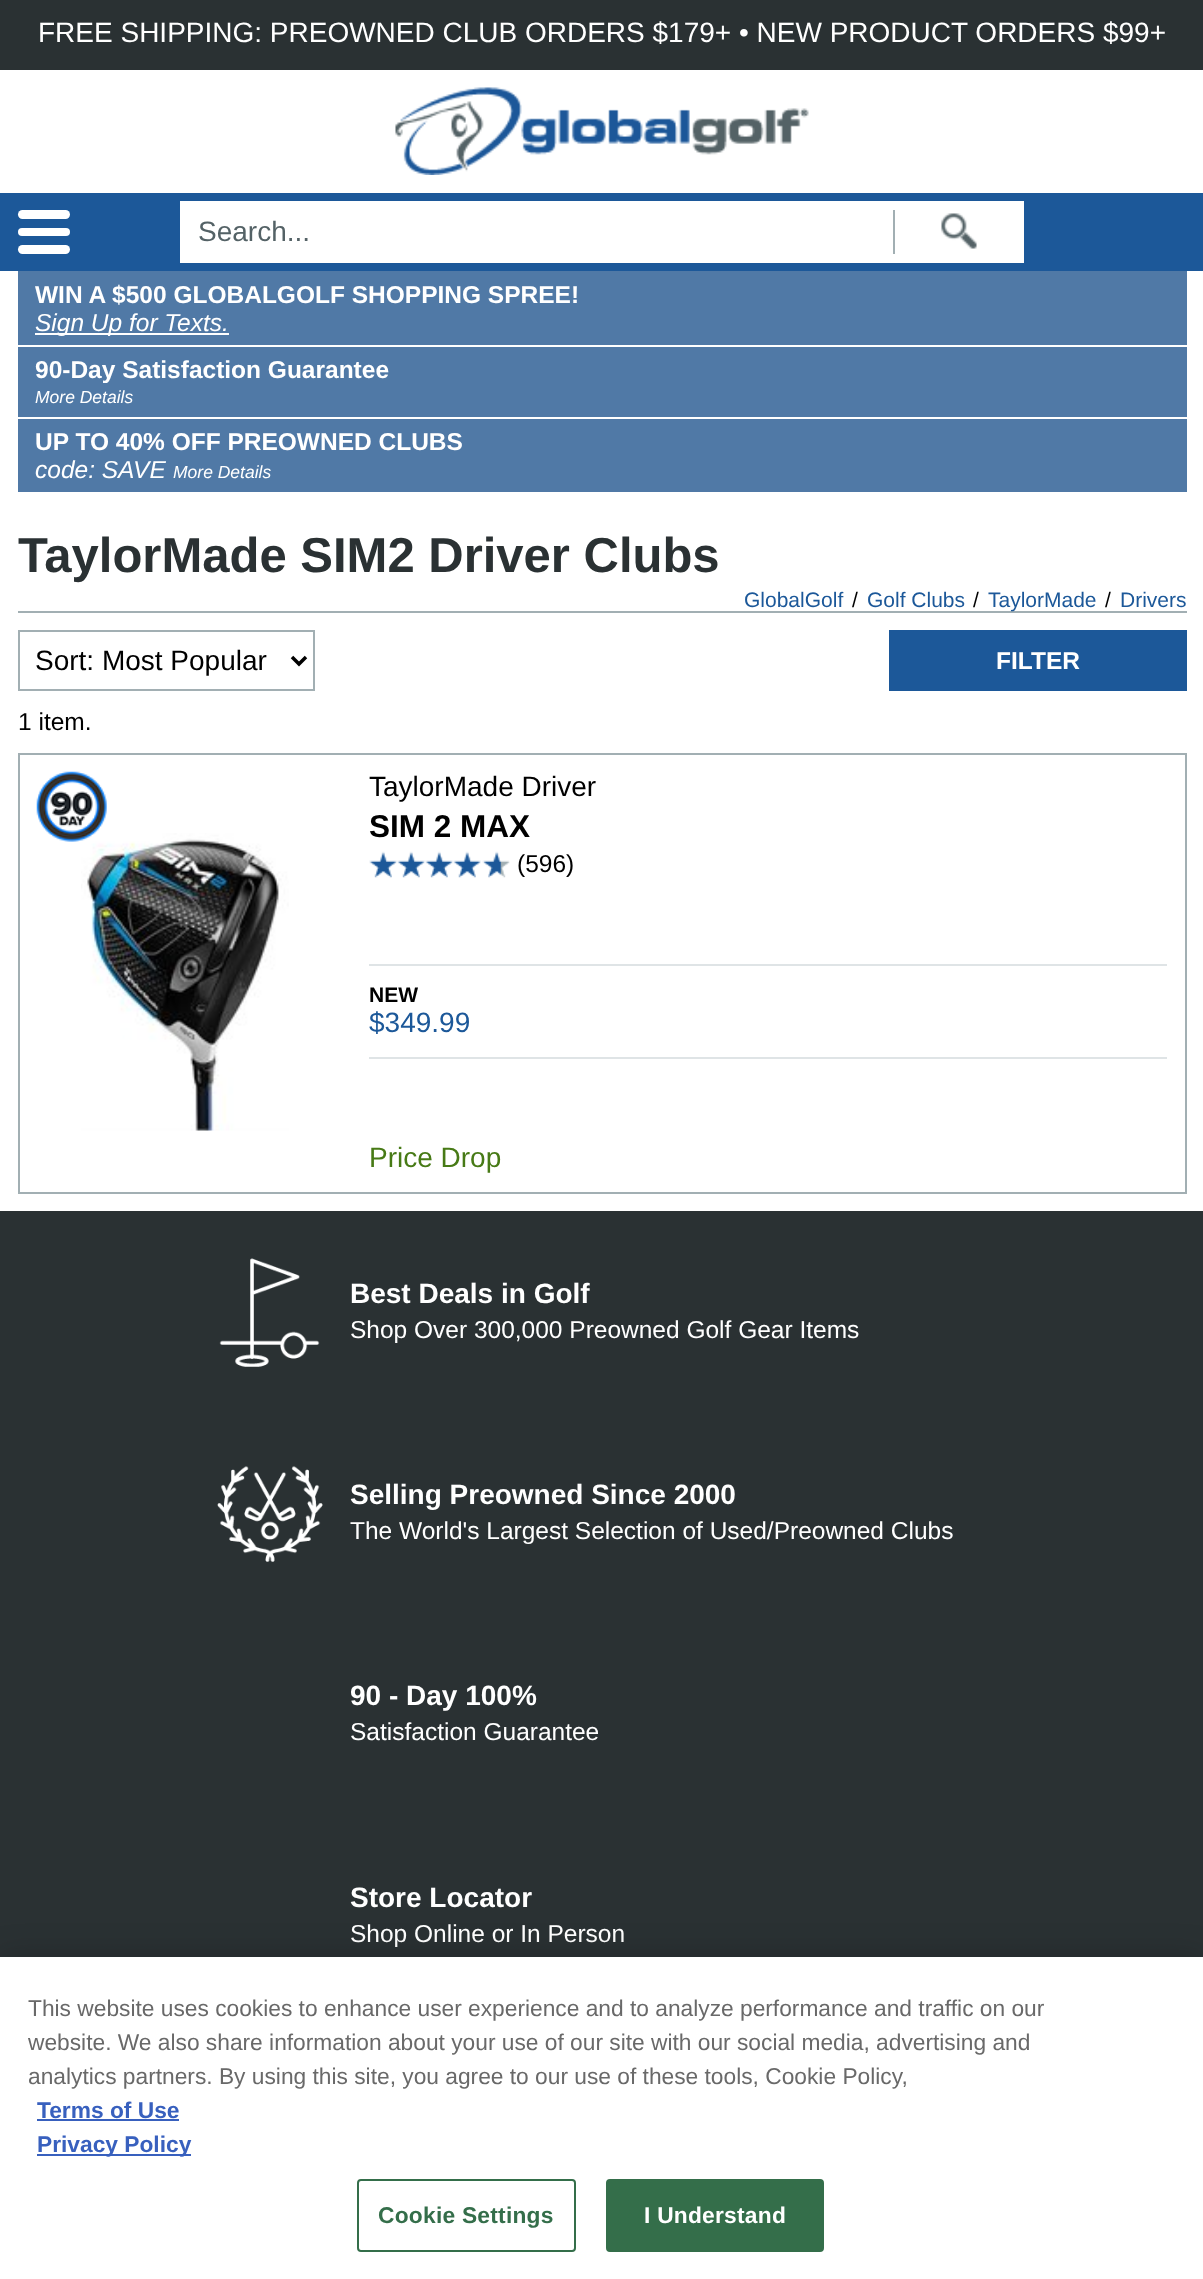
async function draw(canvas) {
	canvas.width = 1203;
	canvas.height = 2279;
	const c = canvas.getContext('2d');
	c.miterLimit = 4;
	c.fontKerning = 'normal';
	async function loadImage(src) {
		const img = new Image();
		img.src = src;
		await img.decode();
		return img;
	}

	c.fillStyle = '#fff';
	c.fillRect(0, 0, 1203, 2279);
	c.fillStyle = '#2a3133';
	c.fillRect(0, 0, 1203, 70);
	c.font = '28px Liberation Sans';
	c.fillStyle = '#fff';
	c.fillText('FREE SHIPPING: PREOWNED CLUB ORDERS $179+ • NEW PRODUCT ORDERS $99+', 38, 42);
	c.drawImage(await loadImage('img1.png'), 395, 87, 414, 88);
	c.fillStyle = '#1c5899';
	c.fillRect(0, 193, 1203, 78);
	c.fillStyle = '#fff';
	c.beginPath();
	c.roundRect(18, 210, 52, 9, 4.5);
	c.fill();
	c.beginPath();
	c.roundRect(18, 228, 52, 8, 4);
	c.fill();
	c.beginPath();
	c.roundRect(18, 245, 52, 9, 4.5);
	c.fill();
	c.fillRect(180, 201, 844, 62);
	c.fillStyle = '#a2afb3';
	c.fillRect(893, 210, 2, 44);
	c.drawImage(await loadImage('img2.png'), 941, 213, 36, 36);
	c.fillStyle = '#546266';
	c.fillText('Search...', 198, 241);
	c.fillStyle = '#5079a6';
	c.fillRect(18, 271, 1169, 221);
	c.fillStyle = '#fff';
	c.fillRect(18, 345, 1169, 2);
	c.font = 'bold 24.5px Liberation Sans';
	c.fillText('WIN A $500 GLOBALGOLF SHOPPING SPREE!', 35, 303);
	c.fillRect(35, 333, 194, 2);
	c.font = 'italic 24.5px Liberation Sans';
	c.fillText('Sign Up for Texts.', 35, 331);
	c.fillRect(18, 417, 1169, 2);
	c.font = 'bold 24.5px Liberation Sans';
	c.fillText('90-Day Satisfaction Guarantee', 35, 378);
	c.font = 'italic 17.5px Liberation Sans';
	c.fillText('More Details', 35, 403);
	c.font = 'bold 24.5px Liberation Sans';
	c.fillText('UP TO 40% OFF PREOWNED CLUBS', 35, 450);
	c.font = 'italic 24.5px Liberation Sans';
	c.fillText('code: SAVE', 35, 478);
	c.font = 'italic 17.5px Liberation Sans';
	c.fillText('More Details', 173, 478);
	c.fillStyle = '#a2afb3';
	c.fillRect(18, 611, 1169, 2);
	c.font = 'bold 49px Liberation Sans';
	c.fillStyle = '#2a3133';
	c.fillText('TaylorMade SIM2 Driver Clubs', 18, 572);
	c.font = '21px Liberation Sans';
	c.fillStyle = '#1c5899';
	c.fillText('GlobalGolf', 744, 607);
	c.fillStyle = '#000';
	c.fillText('/', 852, 607);
	c.fillStyle = '#1c5899';
	c.fillText('Golf Clubs', 867, 607);
	c.fillStyle = '#000';
	c.fillText('/', 973, 607);
	c.fillStyle = '#1c5899';
	c.fillText('TaylorMade', 988, 607);
	c.fillStyle = '#000';
	c.fillText('/', 1105, 607);
	c.fillStyle = '#1c5899';
	c.fillText('Drivers', 1120, 607);
	c.strokeStyle = '#a2afb3';
	c.lineWidth = 2;
	c.strokeRect(19, 631, 295, 59);
	c.beginPath();
	c.moveTo(292, 657);
	c.lineTo(299, 664);
	c.lineTo(306, 657);
	c.strokeStyle = '#000';
	c.lineWidth = 3.5;
	c.stroke();
	c.font = '28px Liberation Sans';
	c.fillStyle = '#000';
	c.fillText('Sort: Most Popular', 35, 670);
	c.fillStyle = '#1c5899';
	c.fillRect(889, 630, 298, 61);
	c.font = 'bold 24.5px Liberation Sans';
	c.fillStyle = '#fff';
	c.fillText('FILTER', 996, 669);
	c.font = '24.5px Liberation Sans';
	c.fillStyle = '#000';
	c.fillText('1 item.', 18, 730);
	c.strokeStyle = '#a2afb3';
	c.lineWidth = 2;
	c.strokeRect(19, 754, 1167, 439);
	c.drawImage(await loadImage('img4.png'), 81, 833, 208, 298);
	c.drawImage(await loadImage('img3.png'), 36, 771, 71, 71);
	c.font = '28px Liberation Sans';
	c.fillText('TaylorMade Driver', 369, 796);
	c.font = 'bold 31.5px Liberation Sans';
	c.fillText('SIM 2 MAX', 369, 837);
	c.drawImage(await loadImage('img5.png'), 369, 851, 28, 27);
	c.drawImage(await loadImage('img5.png'), 397, 851, 28, 27);
	c.drawImage(await loadImage('img5.png'), 425, 851, 28, 27);
	c.drawImage(await loadImage('img6.png'), 453, 851, 28, 27);
	c.drawImage(await loadImage('img7.png'), 482, 851, 28, 27);
	c.font = '24.5px Liberation Sans';
	c.fillText('(596)', 517, 872);
	c.fillStyle = '#dfe4e6';
	c.fillRect(369, 964, 798, 2);
	c.fillRect(369, 1057, 798, 2);
	c.font = 'bold 21px Liberation Sans';
	c.fillStyle = '#000';
	c.fillText('NEW', 369, 1002);
	c.font = '28px Liberation Sans';
	c.fillStyle = '#1c5899';
	c.fillText('$349.99', 369, 1032);
	c.fillStyle = '#477a16';
	c.fillText('Price Drop', 369, 1167);
	c.fillStyle = '#2a3133';
	c.fillRect(0, 1211, 1203, 746);
	c.drawImage(await loadImage('img8.png'), 219, 1258, 101, 109);
	c.font = 'bold 28px Liberation Sans';
	c.fillStyle = '#fff';
	c.fillText('Best Deals in Golf', 350, 1303);
	c.font = '24.5px Liberation Sans';
	c.fillText('Shop Over 300,000 Preowned Golf Gear Items', 350, 1338);
	c.drawImage(await loadImage('img9.png'), 217, 1466, 106, 96);
	c.font = 'bold 28px Liberation Sans';
	c.fillText('Selling Preowned Since 2000', 350, 1504);
	c.font = '24.5px Liberation Sans';
	c.fillText('The World\'s Largest Selection of Used/Preowned Clubs', 350, 1539);
	c.font = 'bold 28px Liberation Sans';
	c.fillText('90 - Day 100%', 350, 1705);
	c.font = '24.5px Liberation Sans';
	c.fillText('Satisfaction Guarantee', 350, 1740);
	c.font = 'bold 28px Liberation Sans';
	c.fillText('Store Locator', 350, 1907);
	c.font = '24.5px Liberation Sans';
	c.fillText('Shop Online or In Person', 350, 1942);
	c.fillStyle = '#00000033';
	c.filter = 'blur(16px)';
	c.beginPath();
	c.rect(0, 1957, 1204, 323);
	c.fill();
	c.filter = 'none';
	c.fillStyle = '#fff';
	c.fillRect(0, 1957, 1203, 322);
	c.font = '22.75px Liberation Sans';
	c.fillStyle = '#696969';
	for (const [text, x, y] of [
		['This website uses cookies to enhance user experience and to analyze performance and traffic on our', 28, 2016],
		['website. We also share information about your use of our site with our social media, advertising and', 28, 2050],
		['analytics partners. By using this site, you agree to our use of these tools, Cookie Policy,', 28, 2084],
	]) {
		c.fillText(text, x, y);
	}
	c.font = 'bold 22.75px Liberation Sans';
	c.fillStyle = '#3860be';
	c.fillText('Terms of Use', 37, 2118);
	c.fillRect(37, 2119, 142, 2);
	c.fillRect(37, 2154, 154, 2);
	c.fillText('Privacy Policy', 37, 2152);
	c.beginPath();
	c.roundRect(358, 2180, 217, 71, 3);
	c.strokeStyle = '#346e4a';
	c.stroke();
	c.letterSpacing = '0.25px';
	c.fillStyle = '#346e4a';
	c.fillText('Cookie Settings', 378, 2223);
	c.beginPath();
	c.roundRect(607, 2180, 216, 71, 3);
	c.fill();
	c.stroke();
	c.fillStyle = '#fff';
	c.fillText('I Understand', 644, 2223);
}

draw(document.querySelector('canvas'));
